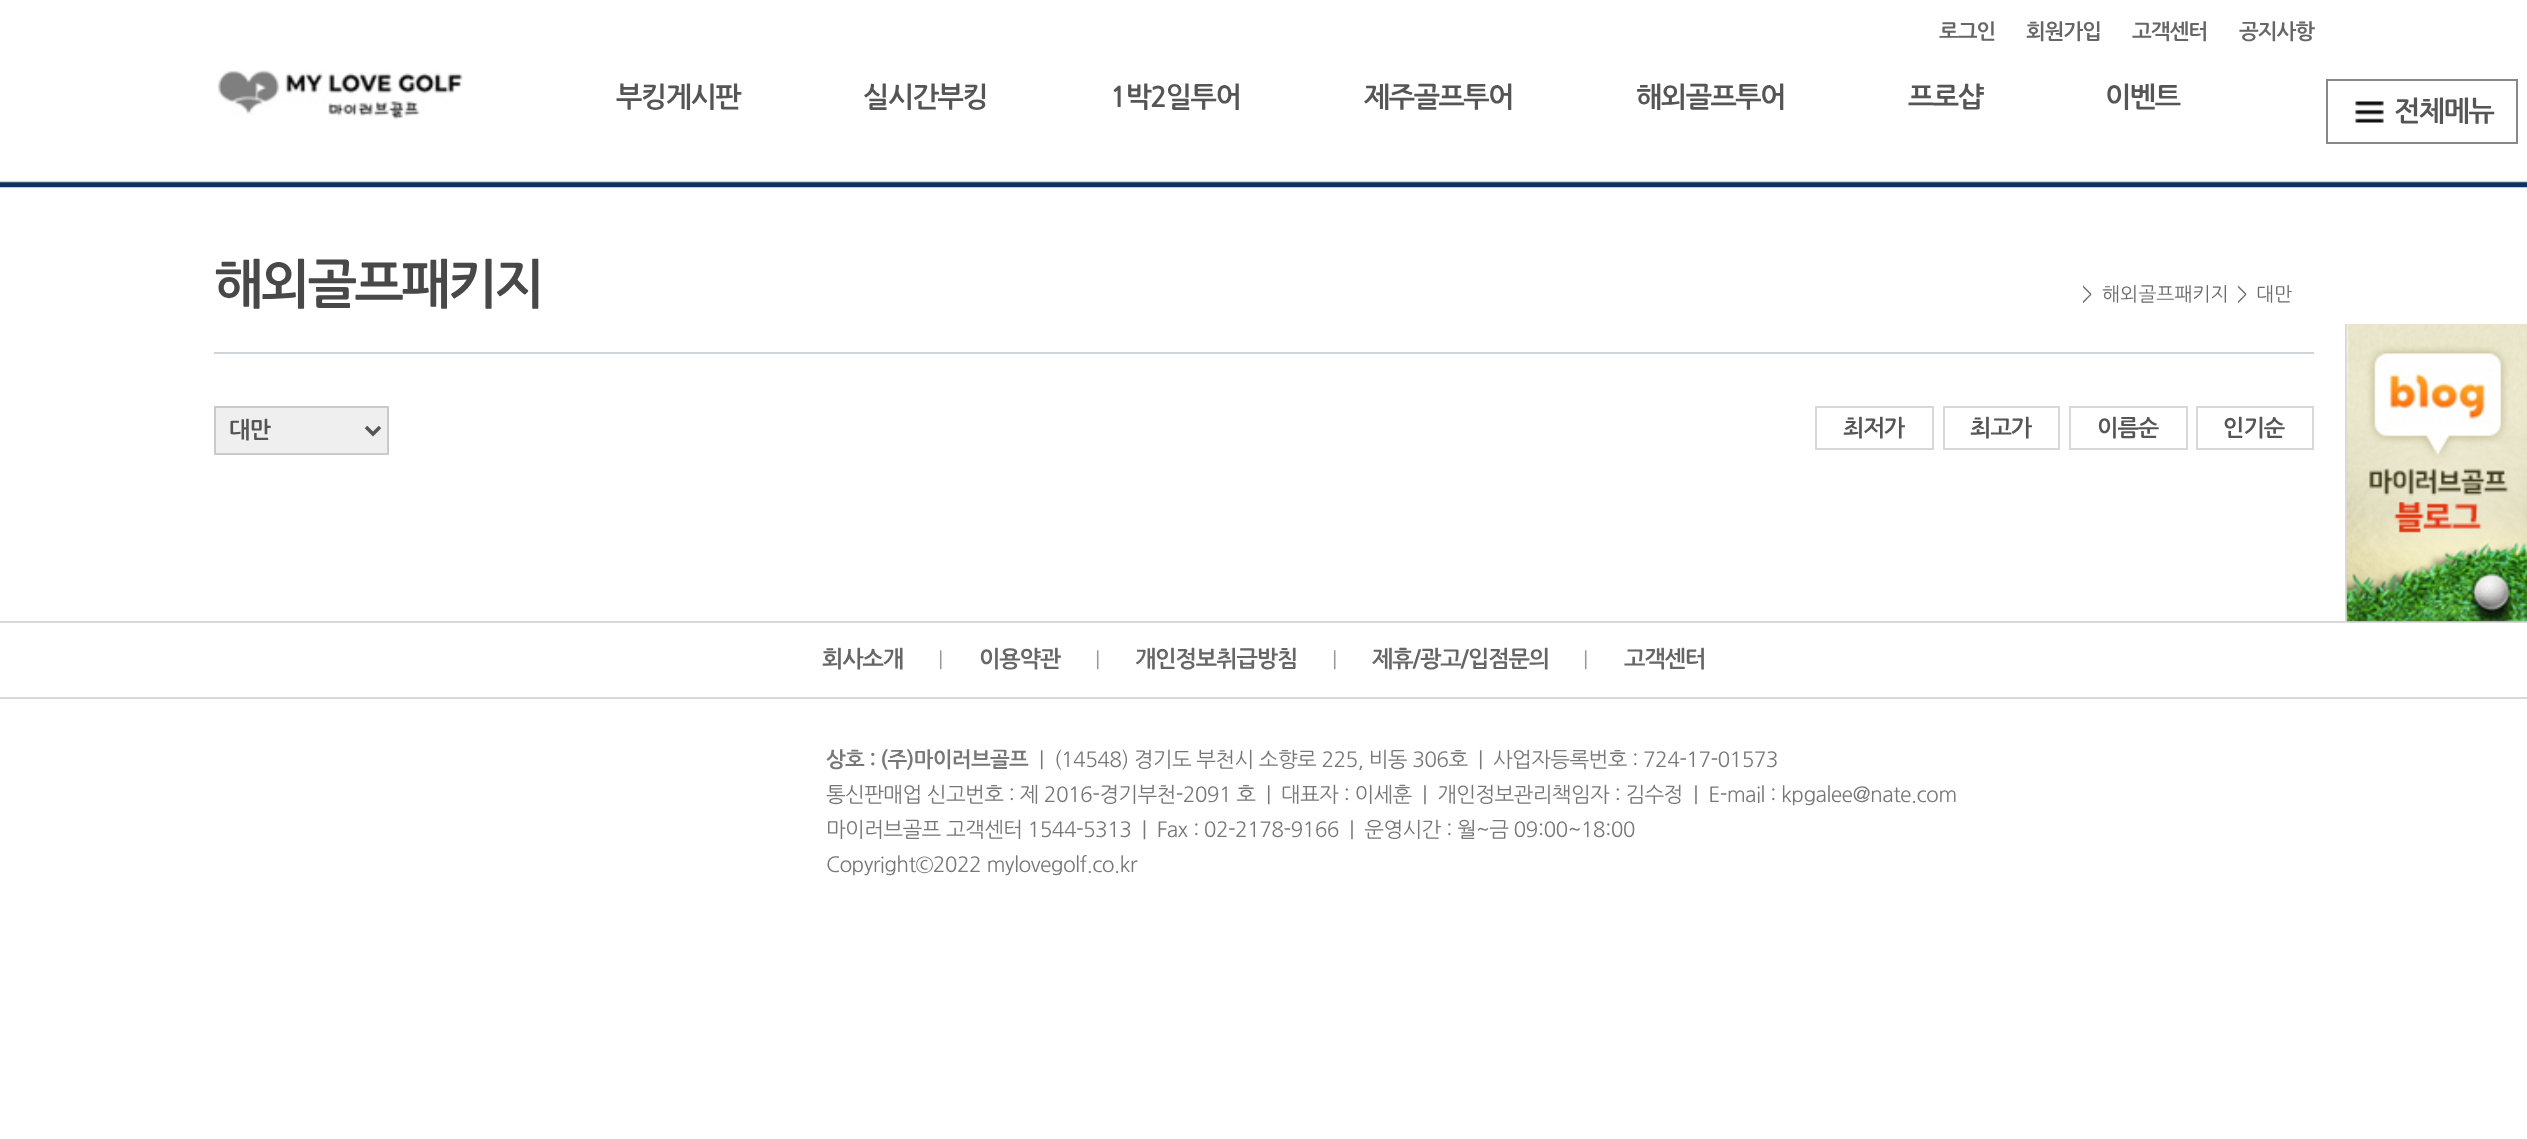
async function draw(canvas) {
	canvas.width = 2527;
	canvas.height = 1139;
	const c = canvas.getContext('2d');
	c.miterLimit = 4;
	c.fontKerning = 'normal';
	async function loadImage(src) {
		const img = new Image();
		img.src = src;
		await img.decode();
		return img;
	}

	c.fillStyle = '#fff';
	c.fillRect(0, 0, 2527, 1139);
	c.drawImage(await loadImage('img1.png'), 0, 0, 2527, 188);
	c.letterSpacing = '-1px';
	c.font = 'bold 21px NanumGothic';
	c.fillStyle = '#666';
	for (const [text, x, y] of [
		['로그인', 1939, 39],
		['회원가입', 2026, 39],
		['고객센터', 2132, 39],
		['공지사항', 2239, 39],
	]) {
		c.fillText(text, x, y);
	}
	c.drawImage(await loadImage('img2.png'), 217, 70, 246, 50);
	c.letterSpacing = '-1.5px';
	c.font = 'bold 28px NanumGothic';
	c.fillStyle = '#555';
	for (const [text, x, y] of [
		['부킹게시판', 616, 107],
		['실시간부킹', 863, 107],
		['1박2일투어', 1110, 107],
		['제주골프투어', 1364, 107],
		['해외골프투어', 1636, 107],
		['프로샵', 1908, 107],
		['이벤트', 2105, 107],
	]) {
		c.fillText(text, x, y);
	}
	c.drawImage(await loadImage('img3.png'), 2355, 101, 29, 22);
	c.strokeStyle = '#888';
	c.lineWidth = 2;
	c.strokeRect(2327, 80, 190, 63);
	c.fillText('전체메뉴', 2394, 121);
	c.fillStyle = '#cfd4d8';
	c.fillRect(214, 352, 2100, 2);
	c.letterSpacing = '-2.5px';
	c.font = 'bold 52.5px NanumGothic';
	c.fillStyle = '#484848';
	c.fillText('해외골프패키지', 214, 303);
	c.letterSpacing = '0px';
	c.font = '19.25px NanumGothic';
	c.fillStyle = '#6c6c6c';
	for (const [text, x, y] of [
		['>', 2082, 301],
		['해외골프패키지', 2102, 301],
		['>', 2237, 301],
		['대만', 2256, 301],
	]) {
		c.fillText(text, x, y);
	}
	c.fillStyle = '#efefef';
	c.beginPath();
	c.rect(215, 407, 173, 47);
	c.fill();
	c.strokeStyle = '#cacaca';
	c.stroke();
	c.beginPath();
	c.moveTo(366, 427);
	c.lineTo(373, 434);
	c.lineTo(380, 427);
	c.strokeStyle = '#555';
	c.lineWidth = 3.5;
	c.stroke();
	c.letterSpacing = '-1px';
	c.font = 'bold 22.75px NanumGothic';
	c.fillStyle = '#555';
	c.fillText('대만', 229, 438);
	c.strokeStyle = '#d8d8d8';
	c.lineWidth = 2;
	c.strokeRect(1816, 407, 117, 42);
	c.fillText('최저가', 1843, 436);
	c.strokeRect(1944, 407, 115, 42);
	c.fillText('최고가', 1970, 436);
	c.strokeRect(2070, 407, 117, 42);
	c.fillText('이름순', 2097, 436);
	c.strokeRect(2197, 407, 116, 42);
	c.fillText('인기순', 2223, 436);
	c.fillStyle = '#d8d8d8';
	c.fillRect(2345, 324, 2, 297);
	c.fillRect(0, 621, 2527, 2);
	c.drawImage(await loadImage('img4.png'), 2346, 324, 181, 298);
	c.fillRect(0, 697, 2527, 2);
	c.letterSpacing = '-1.1px';
	c.fillStyle = '#666';
	c.fillText('회사소개', 822, 667);
	c.letterSpacing = '0px';
	c.font = '21px NanumGothic';
	c.fillStyle = '#999';
	c.fillText('|', 938, 667);
	c.letterSpacing = '-1.1px';
	c.font = 'bold 22.75px NanumGothic';
	c.fillStyle = '#666';
	c.fillText('이용약관', 979, 667);
	c.letterSpacing = '0px';
	c.font = '21px NanumGothic';
	c.fillStyle = '#999';
	c.fillText('|', 1095, 667);
	c.letterSpacing = '-1.1px';
	c.font = 'bold 22.75px NanumGothic';
	c.fillStyle = '#666';
	c.fillText('개인정보취급방침', 1135, 667);
	c.letterSpacing = '0px';
	c.font = '21px NanumGothic';
	c.fillStyle = '#999';
	c.fillText('|', 1332, 667);
	c.letterSpacing = '-1.1px';
	c.font = 'bold 22.75px NanumGothic';
	c.fillStyle = '#666';
	c.fillText('제휴/광고/입점문의', 1372, 667);
	c.letterSpacing = '0px';
	c.font = '21px NanumGothic';
	c.fillStyle = '#999';
	c.fillText('|', 1583, 667);
	c.letterSpacing = '-1.1px';
	c.font = 'bold 22.75px NanumGothic';
	c.fillStyle = '#666';
	c.fillText('고객센터', 1624, 667);
	c.letterSpacing = '-0.63px';
	c.font = 'bold 21px NanumGothic';
	c.fillStyle = '#777';
	c.fillText('상호 : (주)마이러브골프', 826, 767);
	c.font = '21px NanumGothic';
	for (const [text, x, y] of [
		['|  (14548) 경기도 부천시 소향로 225, 비동 306호  |  사업자등록번호 : 724-17-01573', 1039, 767],
		['통신판매업 신고번호 : 제 2016-경기부천-2091 호  |  대표자 : 이세훈  |  개인정보관리책임자 : 김수정  |  E-mail : kpgalee@nate.com', 826, 802],
		['마이러브골프 고객센터 1544-5313  |  Fax : 02-2178-9166  |  운영시간 : 월~금 09:00~18:00', 826, 837],
		['Copyright©2022 mylovegolf.co.kr', 826, 872],
	]) {
		c.fillText(text, x, y);
	}
}

draw(document.querySelector('canvas'));
